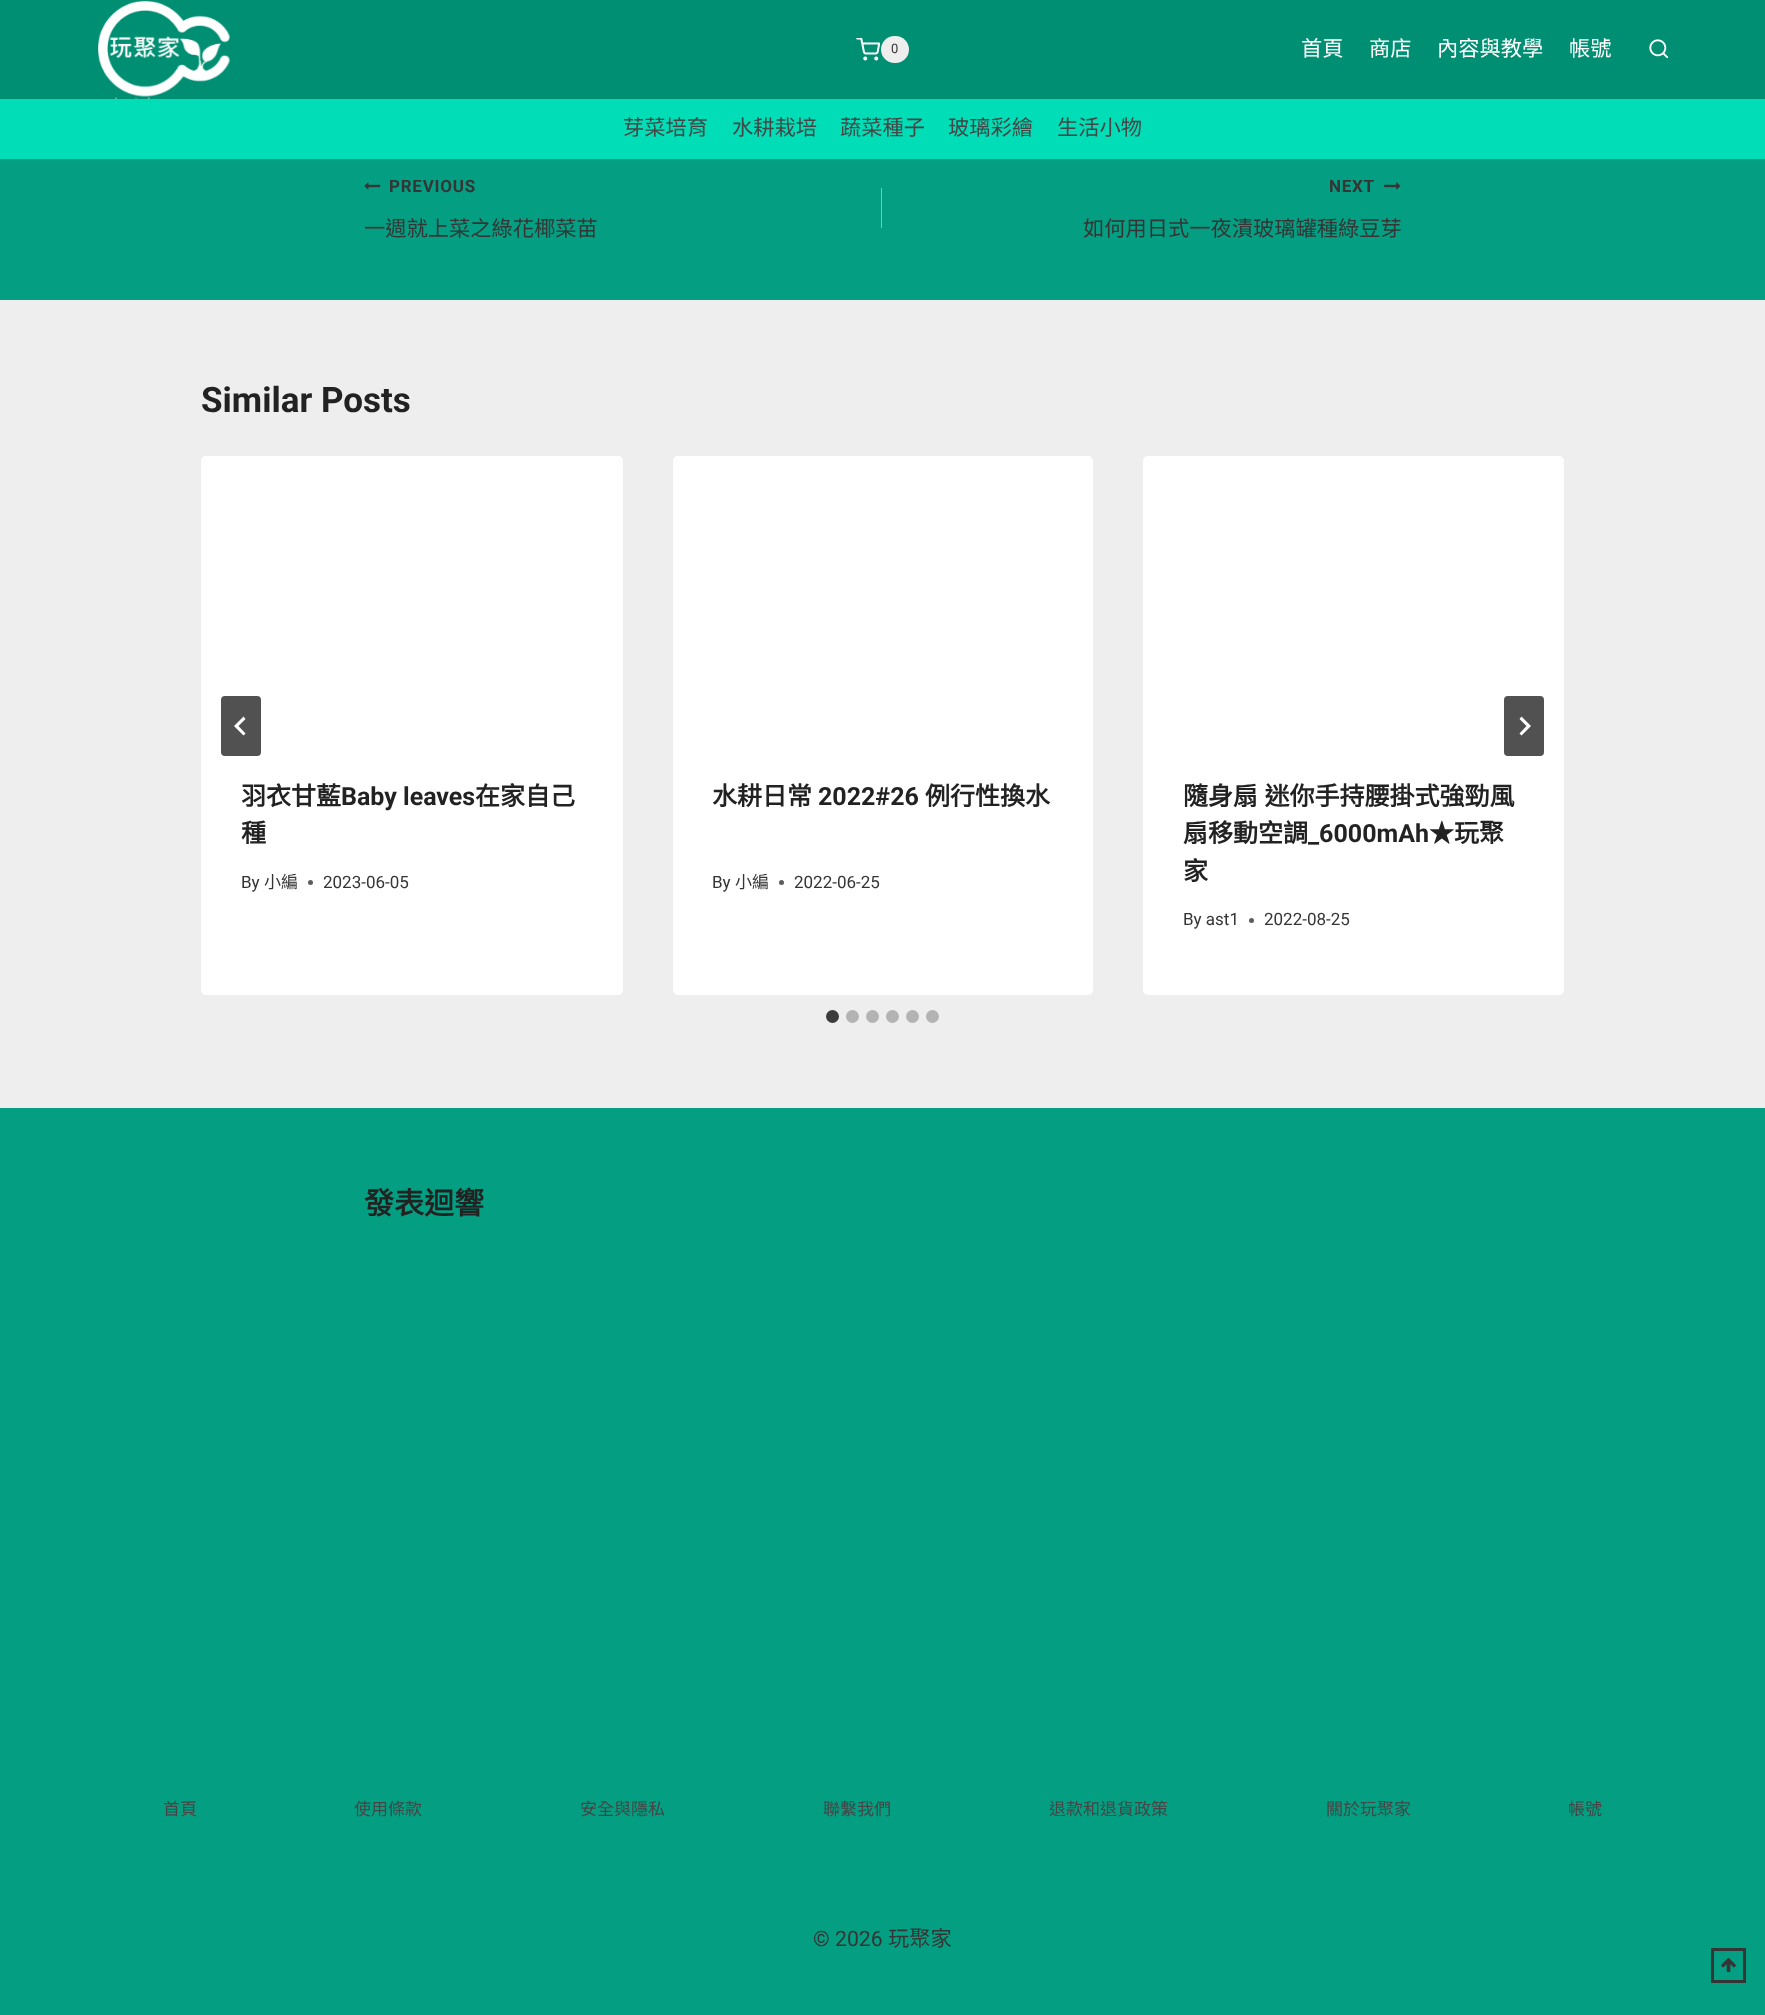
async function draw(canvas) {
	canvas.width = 1765;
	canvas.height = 2015;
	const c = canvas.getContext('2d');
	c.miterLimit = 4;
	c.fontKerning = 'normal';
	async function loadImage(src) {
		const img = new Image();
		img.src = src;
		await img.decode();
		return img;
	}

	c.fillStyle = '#049f82';
	c.fillRect(0, 0, 1765, 2015);
	c.fillStyle = '#008f72';
	c.fillRect(0, 0, 1765, 99);
	c.drawImage(await loadImage('img1.png'), 98, 0, 132, 99);
	c.drawImage(await loadImage('img2.png'), 856, 38, 24, 23);
	c.fillStyle = '#eee';
	c.beginPath();
	c.roundRect(881, 36, 28, 27, 13.5);
	c.fill();
	c.font = '13px Roboto';
	c.fillStyle = '#353535';
	c.fillText('0', 891, 53);
	c.font = '21.25px Noto Sans CJK TC';
	c.fillStyle = '#fff';
	for (const [text, x, y] of [
		['首頁', 1301, 56],
		['商店', 1369, 56],
		['內容與教學', 1437, 56],
		['帳號', 1569, 56],
	]) {
		c.fillText(text, x, y);
	}
	c.drawImage(await loadImage('img3.png'), 1649, 39, 20, 20);
	c.fillStyle = '#00ddb7';
	c.fillRect(0, 99, 1765, 60);
	c.fillStyle = '#454545';
	for (const [text, x, y] of [
		['芽菜培育', 623, 135],
		['水耕栽培', 732, 135],
		['蔬菜種子', 840, 135],
		['玻璃彩繪', 948, 135],
		['生活小物', 1057, 135],
	]) {
		c.fillText(text, x, y);
	}
	c.drawImage(await loadImage('img4.png'), 364, 182, 17, 8);
	c.letterSpacing = '0.75px';
	c.font = 'bold 17px Roboto';
	c.fillStyle = '#353535';
	c.fillText('PREVIOUS', 389, 192);
	c.letterSpacing = '0px';
	c.font = '21.25px Noto Sans CJK TC';
	c.fillText('一週就上菜之綠花椰菜苗', 364, 236);
	c.fillStyle = '#a0aec0';
	c.fillRect(881, 188, 1, 40);
	c.letterSpacing = '0.75px';
	c.font = 'bold 17px Roboto';
	c.fillStyle = '#353535';
	c.fillText('NEXT', 1329, 192);
	c.drawImage(await loadImage('img5.png'), 1384, 182, 17, 8);
	c.letterSpacing = '0px';
	c.font = '21.25px Noto Sans CJK TC';
	c.fillText('如何用日式一夜漬玻璃罐種綠豆芽', 1083, 236);
	c.fillStyle = '#eee';
	c.fillRect(0, 300, 1765, 808);
	c.font = 'bold 35px Roboto';
	c.fillStyle = '#222';
	c.fillText('Similar Posts', 201, 412);
	c.fillStyle = '#fff';
	c.beginPath();
	c.roundRect(201, 456, 422, 539, 5);
	c.fill();
	c.fillStyle = '#515151';
	c.beginPath();
	c.roundRect(221, 696, 40, 60, 4);
	c.fill();
	c.fillStyle = '#fff';
	c.beginPath();
	c.moveTo(243.5, 716.5);
	c.lineTo(245.5, 719);
	c.lineTo(238.5, 726);
	c.lineTo(245.5, 733.5);
	c.lineTo(243.5, 735.5);
	c.lineTo(234, 726);
	c.closePath();
	c.fill();
	c.beginPath();
	c.roundRect(1143, 456, 421, 539, 5);
	c.fill();
	c.fillStyle = '#515151';
	c.beginPath();
	c.roundRect(1504, 696, 40, 60, 4);
	c.fill();
	c.fillStyle = '#fff';
	c.beginPath();
	c.moveTo(1521.5, 716.5);
	c.lineTo(1519.5, 719);
	c.lineTo(1526.5, 726);
	c.lineTo(1519.5, 733.5);
	c.lineTo(1521.5, 735.5);
	c.lineTo(1531, 726);
	c.closePath();
	c.fill();
	c.font = 'bold 25px Noto Sans CJK TC';
	c.fillStyle = '#222';
	c.fillText('羽衣甘藍', 241, 805);
	c.font = 'bold 25px Roboto';
	c.fillText('Baby leaves', 341, 805);
	c.font = 'bold 25px Noto Sans CJK TC';
	c.fillText('在家自己', 475, 805);
	c.fillText('種', 241, 842);
	c.font = '17px Roboto';
	c.fillStyle = '#353535';
	c.fillText('By', 241, 888);
	c.font = '17px Noto Sans CJK TC';
	c.fillText('小編', 264, 888);
	c.fillStyle = '#5d5d5d';
	c.beginPath();
	c.arc(310.5, 882.5, 2.5, 0, 2 * Math.PI);
	c.fill();
	c.font = '17px Roboto';
	c.fillStyle = '#353535';
	c.fillText('2023-06-05', 323, 888);
	c.fillStyle = '#fff';
	c.beginPath();
	c.roundRect(673, 456, 420, 539, 5);
	c.fill();
	c.font = 'bold 25px Noto Sans CJK TC';
	c.fillStyle = '#222';
	c.fillText('水耕日常', 712, 805);
	c.font = 'bold 25px Roboto';
	c.fillText('2022#26', 818, 805);
	c.font = 'bold 25px Noto Sans CJK TC';
	c.fillText('例行性換水', 925, 805);
	c.font = 'bold 25px Roboto';
	c.fillText('￼', 712, 842);
	c.font = '17px Roboto';
	c.fillStyle = '#353535';
	c.fillText('By', 712, 888);
	c.font = '17px Noto Sans CJK TC';
	c.fillText('小編', 735, 888);
	c.fillStyle = '#5d5d5d';
	c.beginPath();
	c.arc(781.5, 882.5, 2.5, 0, 2 * Math.PI);
	c.fill();
	c.font = '17px Roboto';
	c.fillStyle = '#353535';
	c.fillText('2022-06-25', 794, 888);
	c.wordSpacing = '1px';
	c.font = 'bold 25px Noto Sans CJK TC';
	c.fillStyle = '#222';
	c.fillText('隨身扇 迷你手持腰掛式強勁風', 1183, 805);
	c.wordSpacing = '0px';
	c.fillText('扇移動空調', 1183, 842);
	c.font = 'bold 25px Roboto';
	c.fillText('_6000mAh', 1308, 842);
	c.font = 'bold 25px Noto Sans CJK TC';
	c.fillText('★玩聚', 1429, 842);
	c.fillText('家', 1183, 880);
	c.font = '17px Roboto';
	c.fillStyle = '#353535';
	c.fillText('By ast1', 1183, 925);
	c.fillStyle = '#5d5d5d';
	c.beginPath();
	c.arc(1251.5, 920.5, 2.5, 0, 2 * Math.PI);
	c.fill();
	c.fillStyle = '#353535';
	c.fillText('2022-08-25', 1264, 925);
	c.fillStyle = '#3c3c3c';
	c.beginPath();
	c.arc(832.5, 1016.5, 6.5, 0, 2 * Math.PI);
	c.fill();
	c.fillStyle = '#b3b3b3';
	c.beginPath();
	c.arc(852.5, 1016.5, 6.5, 0, 2 * Math.PI);
	c.fill();
	c.beginPath();
	c.arc(872.5, 1016.5, 6.5, 0, 2 * Math.PI);
	c.fill();
	c.beginPath();
	c.arc(892.5, 1016.5, 6.5, 0, 2 * Math.PI);
	c.fill();
	c.beginPath();
	c.arc(912.5, 1016.5, 6.5, 0, 2 * Math.PI);
	c.fill();
	c.beginPath();
	c.arc(932.5, 1016.5, 6.5, 0, 2 * Math.PI);
	c.fill();
	c.font = 'bold 30px Noto Sans CJK TC';
	c.fillStyle = '#222';
	c.fillText('發表迴響', 364, 1214);
	c.font = '17px Noto Sans CJK TC';
	c.fillStyle = '#454545';
	for (const [text, x, y] of [
		['首頁', 163, 1815],
		['使用條款', 354, 1815],
		['安全與隱私', 580, 1815],
		['聯繫我們', 823, 1815],
		['退款和退貨政策', 1049, 1815],
		['關於玩聚家', 1326, 1815],
		['帳號', 1568, 1815],
	]) {
		c.fillText(text, x, y);
	}
	c.font = '21.25px Roboto';
	c.fillStyle = '#353535';
	c.fillText('© 2026', 813, 1946);
	c.font = '21.25px Noto Sans CJK TC';
	c.fillText('玩聚家', 888, 1946);
	c.strokeStyle = '#353535';
	c.lineWidth = 3;
	c.strokeRect(1712.5, 1949.5, 32, 32);
	c.drawImage(await loadImage('img6.png'), 1721, 1958, 15, 14);
}

draw(document.querySelector('canvas'));
